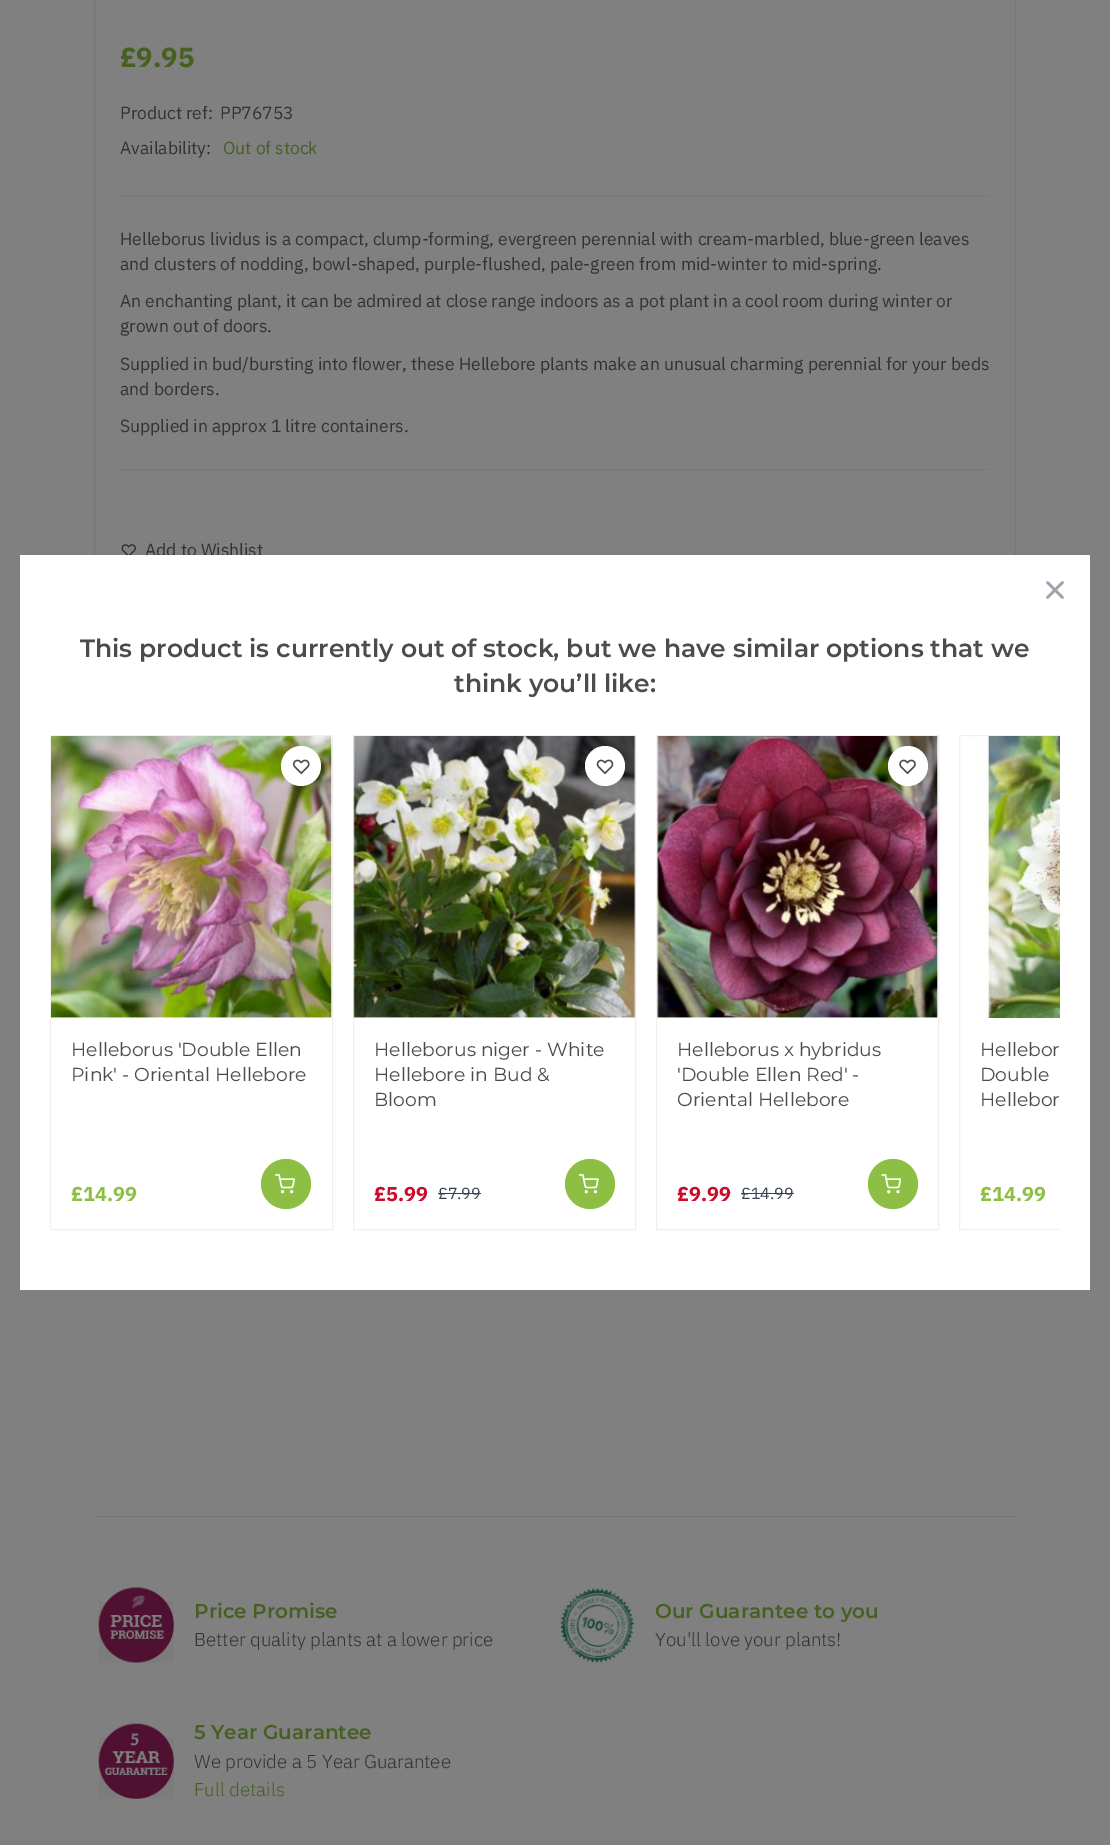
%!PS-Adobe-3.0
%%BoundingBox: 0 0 1110 1845
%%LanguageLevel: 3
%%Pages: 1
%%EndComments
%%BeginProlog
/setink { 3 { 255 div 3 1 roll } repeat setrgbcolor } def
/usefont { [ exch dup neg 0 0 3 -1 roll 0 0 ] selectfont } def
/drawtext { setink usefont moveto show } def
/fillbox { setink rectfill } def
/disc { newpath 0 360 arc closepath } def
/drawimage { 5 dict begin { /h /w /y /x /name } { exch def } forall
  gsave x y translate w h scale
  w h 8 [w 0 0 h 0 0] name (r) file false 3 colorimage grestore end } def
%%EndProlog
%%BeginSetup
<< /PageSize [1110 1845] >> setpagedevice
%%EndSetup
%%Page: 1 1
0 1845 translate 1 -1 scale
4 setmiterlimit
0 0 1110 1845 128 128 128 fillbox
118 118 118 setink
94.5 -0.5 921 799 rectstroke
(£9.95) 120 67 /IBMPlexSans-Bold 27.5 70 96 34 drawtext
(Product ref:) 120 119 /IBMPlexSans-Regular 17.5 51 51 51 drawtext
(PP76753) 220 119 /IBMPlexSans-Regular 17.5 51 51 51 drawtext
(Availability:) 120 154 /IBMPlexSans-Regular 17.5 51 51 51 drawtext
(Out of stock) 223 154 /IBMPlexSans-Regular 17.5 70 96 34 drawtext
120 195 870 1 120 120 120 fillbox
120 469 870 1 120 120 120 fillbox
(Helleborus lividus is a compact, clump-forming, evergreen perennial with cream-marbled, blue-green leaves) 120 245 /IBMPlexSans-Regular 17.5 51 51 51 drawtext
(and clusters of nodding, bowl-shaped, purple-flushed, pale-green from mid-winter to mid-spring.) 120 270 /IBMPlexSans-Regular 17.5 51 51 51 drawtext
(An enchanting plant, it can be admired at close range indoors as a pot plant in a cool room during winter or) 120 307 /IBMPlexSans-Regular 17.5 51 51 51 drawtext
(grown out of doors.) 120 332 /IBMPlexSans-Regular 17.5 51 51 51 drawtext
(Supplied in bud/bursting into flower, these Hellebore plants make an unusual charming perennial for your beds) 120 370 /IBMPlexSans-Regular 17.5 51 51 51 drawtext
(and borders.) 120 395 /IBMPlexSans-Regular 17.5 51 51 51 drawtext
(Supplied in approx 1 litre containers.) 120 432 /IBMPlexSans-Regular 17.5 51 51 51 drawtext
(assets/img1.rgb) 121 544 15 11 drawimage
(Add to Wishlist) 145 556 /IBMPlexSans-Regular 17.5 51 51 51 drawtext
94 1516 922 1 118 118 118 fillbox
(assets/img2.rgb) 98 1587 76 76 drawimage
(Price Promise) 194 1618 /Montserrat-SemiBold 20 70 96 34 drawtext
(Better quality plants at a lower price) 194 1646 /IBMPlexSans-Light 18.75 51 51 51 drawtext
(assets/img3.rgb) 560 1588 75 75 drawimage
(Our Guarantee to you) 655 1618 /Montserrat-SemiBold 20 70 96 34 drawtext
(You'll love your plants!) 655 1646 /IBMPlexSans-Light 18.75 51 51 51 drawtext
(assets/img4.rgb) 98 1723 76 76 drawimage
(5 Year Guarantee) 194 1739 /Montserrat-SemiBold 20 70 96 34 drawtext
(We provide a 5 Year Guarantee) 194 1768 /IBMPlexSans-Light 18.75 51 51 51 drawtext
(Full details) 194 1796 /IBMPlexSans-Light 18.75 70 96 34 drawtext
20 555 1070 735 255 255 255 fillbox
156 163 175 setink
2.5 setlinewidth
1 setlinecap
1 setlinejoin
1047.5 597.5 moveto 1062.5 582.5 lineto 1047.5 582.5 moveto 1062.5 597.5 lineto stroke
(This product is currently out of stock, but we have similar options that we) 80 657 /Montserrat-SemiBold 25 76 76 76 drawtext
(think you’ll like:) 454 692 /Montserrat-SemiBold 25 76 76 76 drawtext
240 240 240 setink
1 setlinewidth
0 setlinecap
0 setlinejoin
50.5 735.5 282 494 rectstroke
(assets/img5.rgb) 51 736 281 282 drawimage
255 255 255 setink
301 766 20 disc fill
(assets/img6.rgb) 292 759 18 16 drawimage
(Helleborus 'Double Ellen) 71 1056 /Montserrat-Regular 18.75 76 76 76 drawtext
(Pink' - Oriental Hellebore) 71 1081 /Montserrat-Regular 18.75 76 76 76 drawtext
(£14.99) 71 1201 /IBMPlexSans-Bold 20 140 191 67 drawtext
286 1184 25 disc fill
(assets/img7.rgb) 275 1174 20 20 drawimage
240 240 240 setink
353.5 735.5 282 494 rectstroke
(assets/img8.rgb) 353 736 283 282 drawimage
255 255 255 setink
605 766 20 disc fill
(assets/img9.rgb) 596 759 18 15 drawimage
(Helleborus niger - White) 374 1056 /Montserrat-Regular 18.75 76 76 76 drawtext
(Hellebore in Bud &) 374 1081 /Montserrat-Regular 18.75 76 76 76 drawtext
(Bloom) 374 1106 /Montserrat-Regular 18.75 76 76 76 drawtext
(£5.99) 374 1201 /IBMPlexSans-Bold 20 204 11 44 drawtext
(£7.99) 438 1199 /IBMPlexSans-Regular 16 55 65 81 drawtext
438 1193 43 1 55 65 81 fillbox
140 191 67 setink
590 1184 25 disc fill
(assets/img10.rgb) 579 1174 20 20 drawimage
240 240 240 setink
656.5 735.5 282 494 rectstroke
(assets/img11.rgb) 657 736 281 282 drawimage
255 255 255 setink
908 766 20 disc fill
(assets/img12.rgb) 899 759 17 16 drawimage
(Helleborus x hybridus) 677 1056 /Montserrat-Regular 18.75 76 76 76 drawtext
('Double Ellen Red' -) 677 1081 /Montserrat-Regular 18.75 76 76 76 drawtext
(Oriental Hellebore) 677 1106 /Montserrat-Regular 18.75 76 76 76 drawtext
(£9.99) 677 1201 /IBMPlexSans-Bold 20 204 11 44 drawtext
(£14.99) 741 1199 /IBMPlexSans-Regular 16 55 65 81 drawtext
741 1193 53 1 55 65 81 fillbox
140 191 67 setink
893 1184 25 disc fill
(assets/img13.rgb) 881 1174 20 20 drawimage
gsave
50 735 1010 495 rectclip
240 240 240 setink
959.5 735.5 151 494 rectstroke
grestore
(assets/img14.rgb) 977 736 83 282 drawimage
(Hellebor) 980 1056 /Montserrat-Regular 18.75 76 76 76 drawtext
(Double) 980 1081 /Montserrat-Regular 18.75 76 76 76 drawtext
(Hellebor) 980 1106 /Montserrat-Regular 18.75 76 76 76 drawtext
(£14.99) 980 1201 /IBMPlexSans-Bold 20 140 191 67 drawtext
showpage
%%EOF
